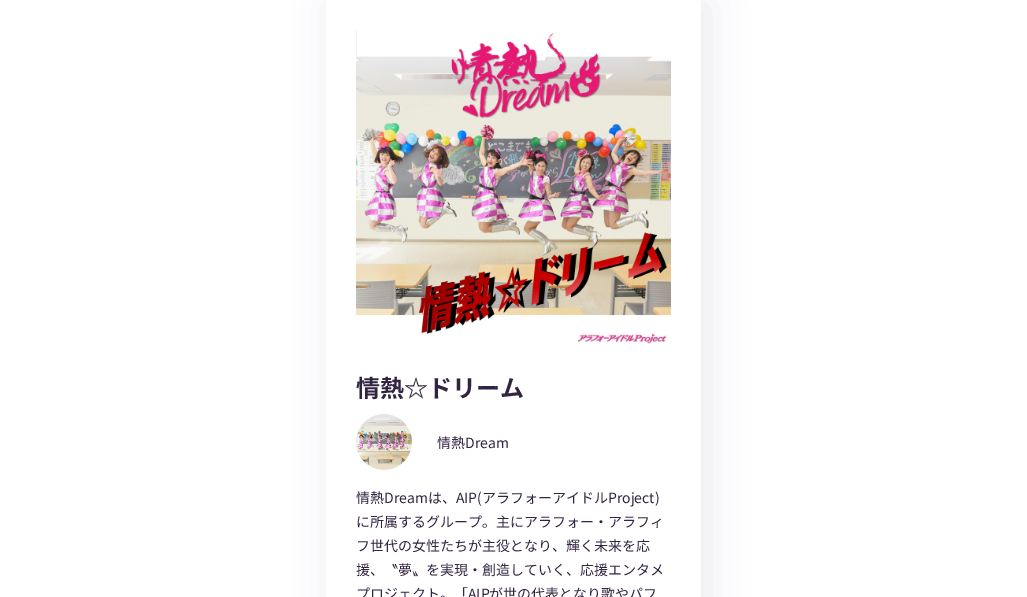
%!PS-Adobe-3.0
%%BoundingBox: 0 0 1027 597
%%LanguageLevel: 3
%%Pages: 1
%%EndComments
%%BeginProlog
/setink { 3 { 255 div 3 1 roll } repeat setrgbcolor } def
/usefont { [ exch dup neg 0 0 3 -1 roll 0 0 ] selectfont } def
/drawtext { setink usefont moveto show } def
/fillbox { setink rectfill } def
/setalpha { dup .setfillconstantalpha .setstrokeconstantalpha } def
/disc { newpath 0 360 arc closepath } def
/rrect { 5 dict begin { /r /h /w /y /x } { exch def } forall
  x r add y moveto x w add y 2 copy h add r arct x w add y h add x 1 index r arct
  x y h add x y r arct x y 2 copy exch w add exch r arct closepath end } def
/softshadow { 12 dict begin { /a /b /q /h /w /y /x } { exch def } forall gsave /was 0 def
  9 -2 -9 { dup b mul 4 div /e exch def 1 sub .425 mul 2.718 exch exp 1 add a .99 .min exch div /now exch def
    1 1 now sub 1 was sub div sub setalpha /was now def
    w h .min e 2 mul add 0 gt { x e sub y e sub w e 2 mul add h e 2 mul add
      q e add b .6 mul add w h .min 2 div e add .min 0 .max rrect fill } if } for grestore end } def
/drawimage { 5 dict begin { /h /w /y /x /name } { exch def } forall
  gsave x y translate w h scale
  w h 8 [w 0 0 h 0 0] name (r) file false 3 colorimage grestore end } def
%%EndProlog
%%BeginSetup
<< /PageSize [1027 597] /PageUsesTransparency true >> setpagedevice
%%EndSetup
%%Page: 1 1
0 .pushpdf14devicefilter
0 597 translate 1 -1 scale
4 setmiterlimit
0 0 1027 597 255 255 255 fillbox
gsave
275 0 moveto 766 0 lineto 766 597 lineto 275 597 lineto closepath 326 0 moveto 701 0 lineto 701 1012 lineto 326 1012 lineto closepath eoclip newpath
114 116 130 setink
333 5 375 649 0 19 0.15 softshadow
grestore
(assets/img1.rgb) 356 30 315 314 drawimage
(情熱) 356 397 /NotoSansJP-Bold 24 50 35 65 drawtext
(☆) 404 397 /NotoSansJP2-Bold 24 50 35 65 drawtext
(ドリーム) 428 397 /NotoSansJP-Bold 24 50 35 65 drawtext
242 242 242 setink
384 442 28 disc fill
(assets/img2.rgb) 356 414 56 56 drawimage
(情熱Dream) 437 448 /NotoSansJP-Regular 14 50 35 65 drawtext
(情熱Dreamは、AIP\(アラフォーアイドルProject\)) 356 503 /NotoSansJP-Regular 14 50 35 65 drawtext
(に所属するグループ。主にアラフォー・アラフィ) 356 527 /NotoSansJP-Regular 14 50 35 65 drawtext
(フ世代の女性たちが主役となり、輝く未来を応) 356 551 /NotoSansJP-Regular 14 50 35 65 drawtext
(援、) 356 575 /NotoSansJP-Regular 14 50 35 65 drawtext
(〝) 384 575 /WenQuanYiZenHei-Medium 14 50 35 65 drawtext
(夢) 398 575 /NotoSansJP-Regular 14 50 35 65 drawtext
(〟) 412 575 /WenQuanYiZenHei-Medium 14 50 35 65 drawtext
(を実現・創造していく、応援エンタメ) 426 575 /NotoSansJP-Regular 14 50 35 65 drawtext
(プロジェクト。「AIPが世の代表となり歌やパフ) 356 599 /NotoSansJP-Regular 14 50 35 65 drawtext
.poppdf14devicefilter showpage
%%EOF
